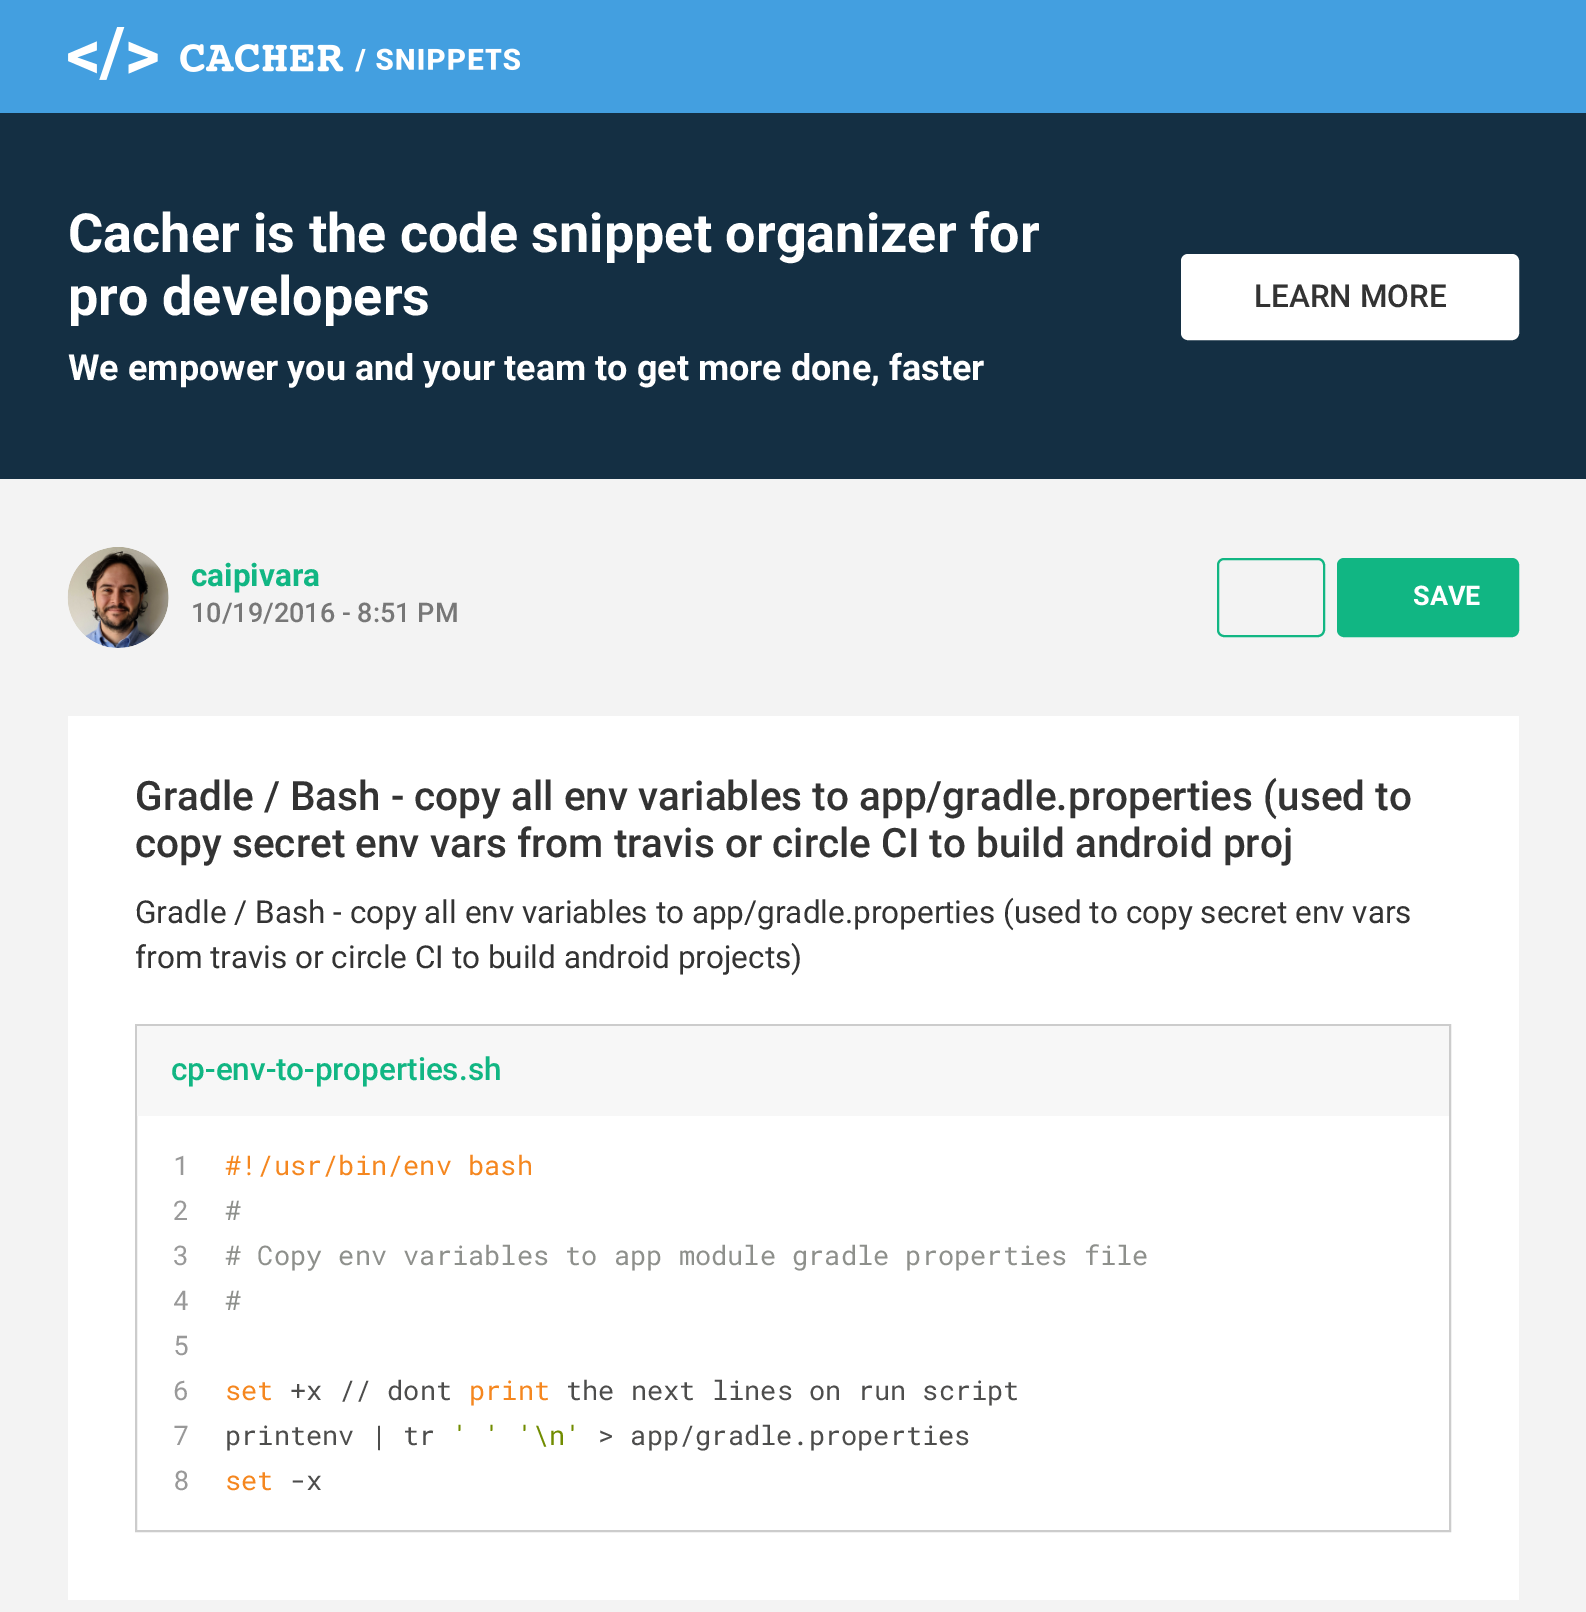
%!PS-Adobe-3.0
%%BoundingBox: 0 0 1586 1612
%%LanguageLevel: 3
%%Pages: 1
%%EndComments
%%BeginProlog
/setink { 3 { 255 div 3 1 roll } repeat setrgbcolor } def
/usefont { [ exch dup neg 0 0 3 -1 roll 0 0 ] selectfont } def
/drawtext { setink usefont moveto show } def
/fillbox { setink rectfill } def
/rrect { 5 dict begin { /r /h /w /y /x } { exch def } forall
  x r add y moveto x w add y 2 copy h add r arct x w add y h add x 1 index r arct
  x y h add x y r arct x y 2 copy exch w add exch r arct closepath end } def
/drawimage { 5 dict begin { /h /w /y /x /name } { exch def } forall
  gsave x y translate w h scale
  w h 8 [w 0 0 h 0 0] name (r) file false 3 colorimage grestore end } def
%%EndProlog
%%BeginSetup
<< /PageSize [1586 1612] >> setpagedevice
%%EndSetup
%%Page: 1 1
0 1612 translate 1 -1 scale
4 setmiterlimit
0 0 1586 1612 243 243 243 fillbox
0 0 1586 113 67 159 224 fillbox
(assets/img1.rgb) 68 27 452 53 drawimage
0 113 1586 366 20 47 67 fillbox
(Cacher is the code snippet organizer for) 68 252 /Roboto-Bold 54 255 255 255 drawtext
(pro developers) 68 315 /Roboto-Bold 54 255 255 255 drawtext
(We empower you and your team to get more done, faster) 68 380 /Roboto-Bold 36 255 255 255 drawtext
1182 255 336 84 6 rrect gsave fill grestore
2 setlinewidth
stroke
(LEARN MORE) 1254 307 /Roboto-Medium 31.5 51 51 51 drawtext
(assets/img2.rgb) 67 547 102 101 drawimage
(caipivara) 191 586 /Roboto-Bold 31.5 17 182 131 drawtext
(10/19/2016 - 8:51 PM) 191 622 /Roboto-Medium 27 119 119 119 drawtext
17 182 131 setink
1218 559 106 77 6 rrect stroke
1338 559 180 77 6 rrect gsave fill grestore
stroke
(SAVE) 1413 605 /Roboto-Bold 27 255 255 255 drawtext
68 716 1451 884 255 255 255 fillbox
(Gradle / Bash - copy all env variables to app/gradle.properties \(used to) 135 810 /Roboto-Medium 40.5 51 51 51 drawtext
(copy secret env vars from travis or circle CI to build android proj) 135 857 /Roboto-Medium 40.5 51 51 51 drawtext
(Gradle / Bash - copy all env variables to app/gradle.properties \(used to copy secret env vars) 135 923 /Roboto-Regular 31.5 51 51 51 drawtext
(from travis or circle CI to build android projects\)) 135 968 /Roboto-Regular 31.5 51 51 51 drawtext
204 204 204 setink
136 1025 1314 506 rectstroke
137 1026 1312 90 247 247 247 fillbox
(cp-env-to-properties.sh) 171 1080 /Roboto-Medium 31.5 17 182 131 drawtext
(1) 173 1175 /RobotoMono-Regular 27 153 153 153 drawtext
(#!/usr/bin/env bash) 225 1175 /RobotoMono-Regular 27 245 135 31 drawtext
(2) 173 1220 /RobotoMono-Regular 27 153 153 153 drawtext
(#) 225 1220 /RobotoMono-Regular 27 142 144 140 drawtext
(3) 173 1265 /RobotoMono-Regular 27 153 153 153 drawtext
(# Copy env variables to app module gradle properties file) 225 1265 /RobotoMono-Regular 27 142 144 140 drawtext
(4) 173 1310 /RobotoMono-Regular 27 153 153 153 drawtext
(#) 225 1310 /RobotoMono-Regular 27 142 144 140 drawtext
(5) 173 1355 /RobotoMono-Regular 27 153 153 153 drawtext
(6) 173 1400 /RobotoMono-Regular 27 153 153 153 drawtext
(set) 225 1400 /RobotoMono-Regular 27 245 135 31 drawtext
(+x // dont) 290 1400 /RobotoMono-Regular 27 77 77 76 drawtext
(print) 469 1400 /RobotoMono-Regular 27 245 135 31 drawtext
(the next lines on run script) 566 1400 /RobotoMono-Regular 27 77 77 76 drawtext
(7) 173 1445 /RobotoMono-Regular 27 153 153 153 drawtext
(printenv | tr) 225 1445 /RobotoMono-Regular 27 77 77 76 drawtext
(' ' '\\n') 452 1445 /RobotoMono-Regular 27 113 140 0 drawtext
(> app/gradle.properties) 598 1445 /RobotoMono-Regular 27 77 77 76 drawtext
(8) 173 1490 /RobotoMono-Regular 27 153 153 153 drawtext
(set) 225 1490 /RobotoMono-Regular 27 245 135 31 drawtext
(-x) 290 1490 /RobotoMono-Regular 27 77 77 76 drawtext
showpage
%%EOF
